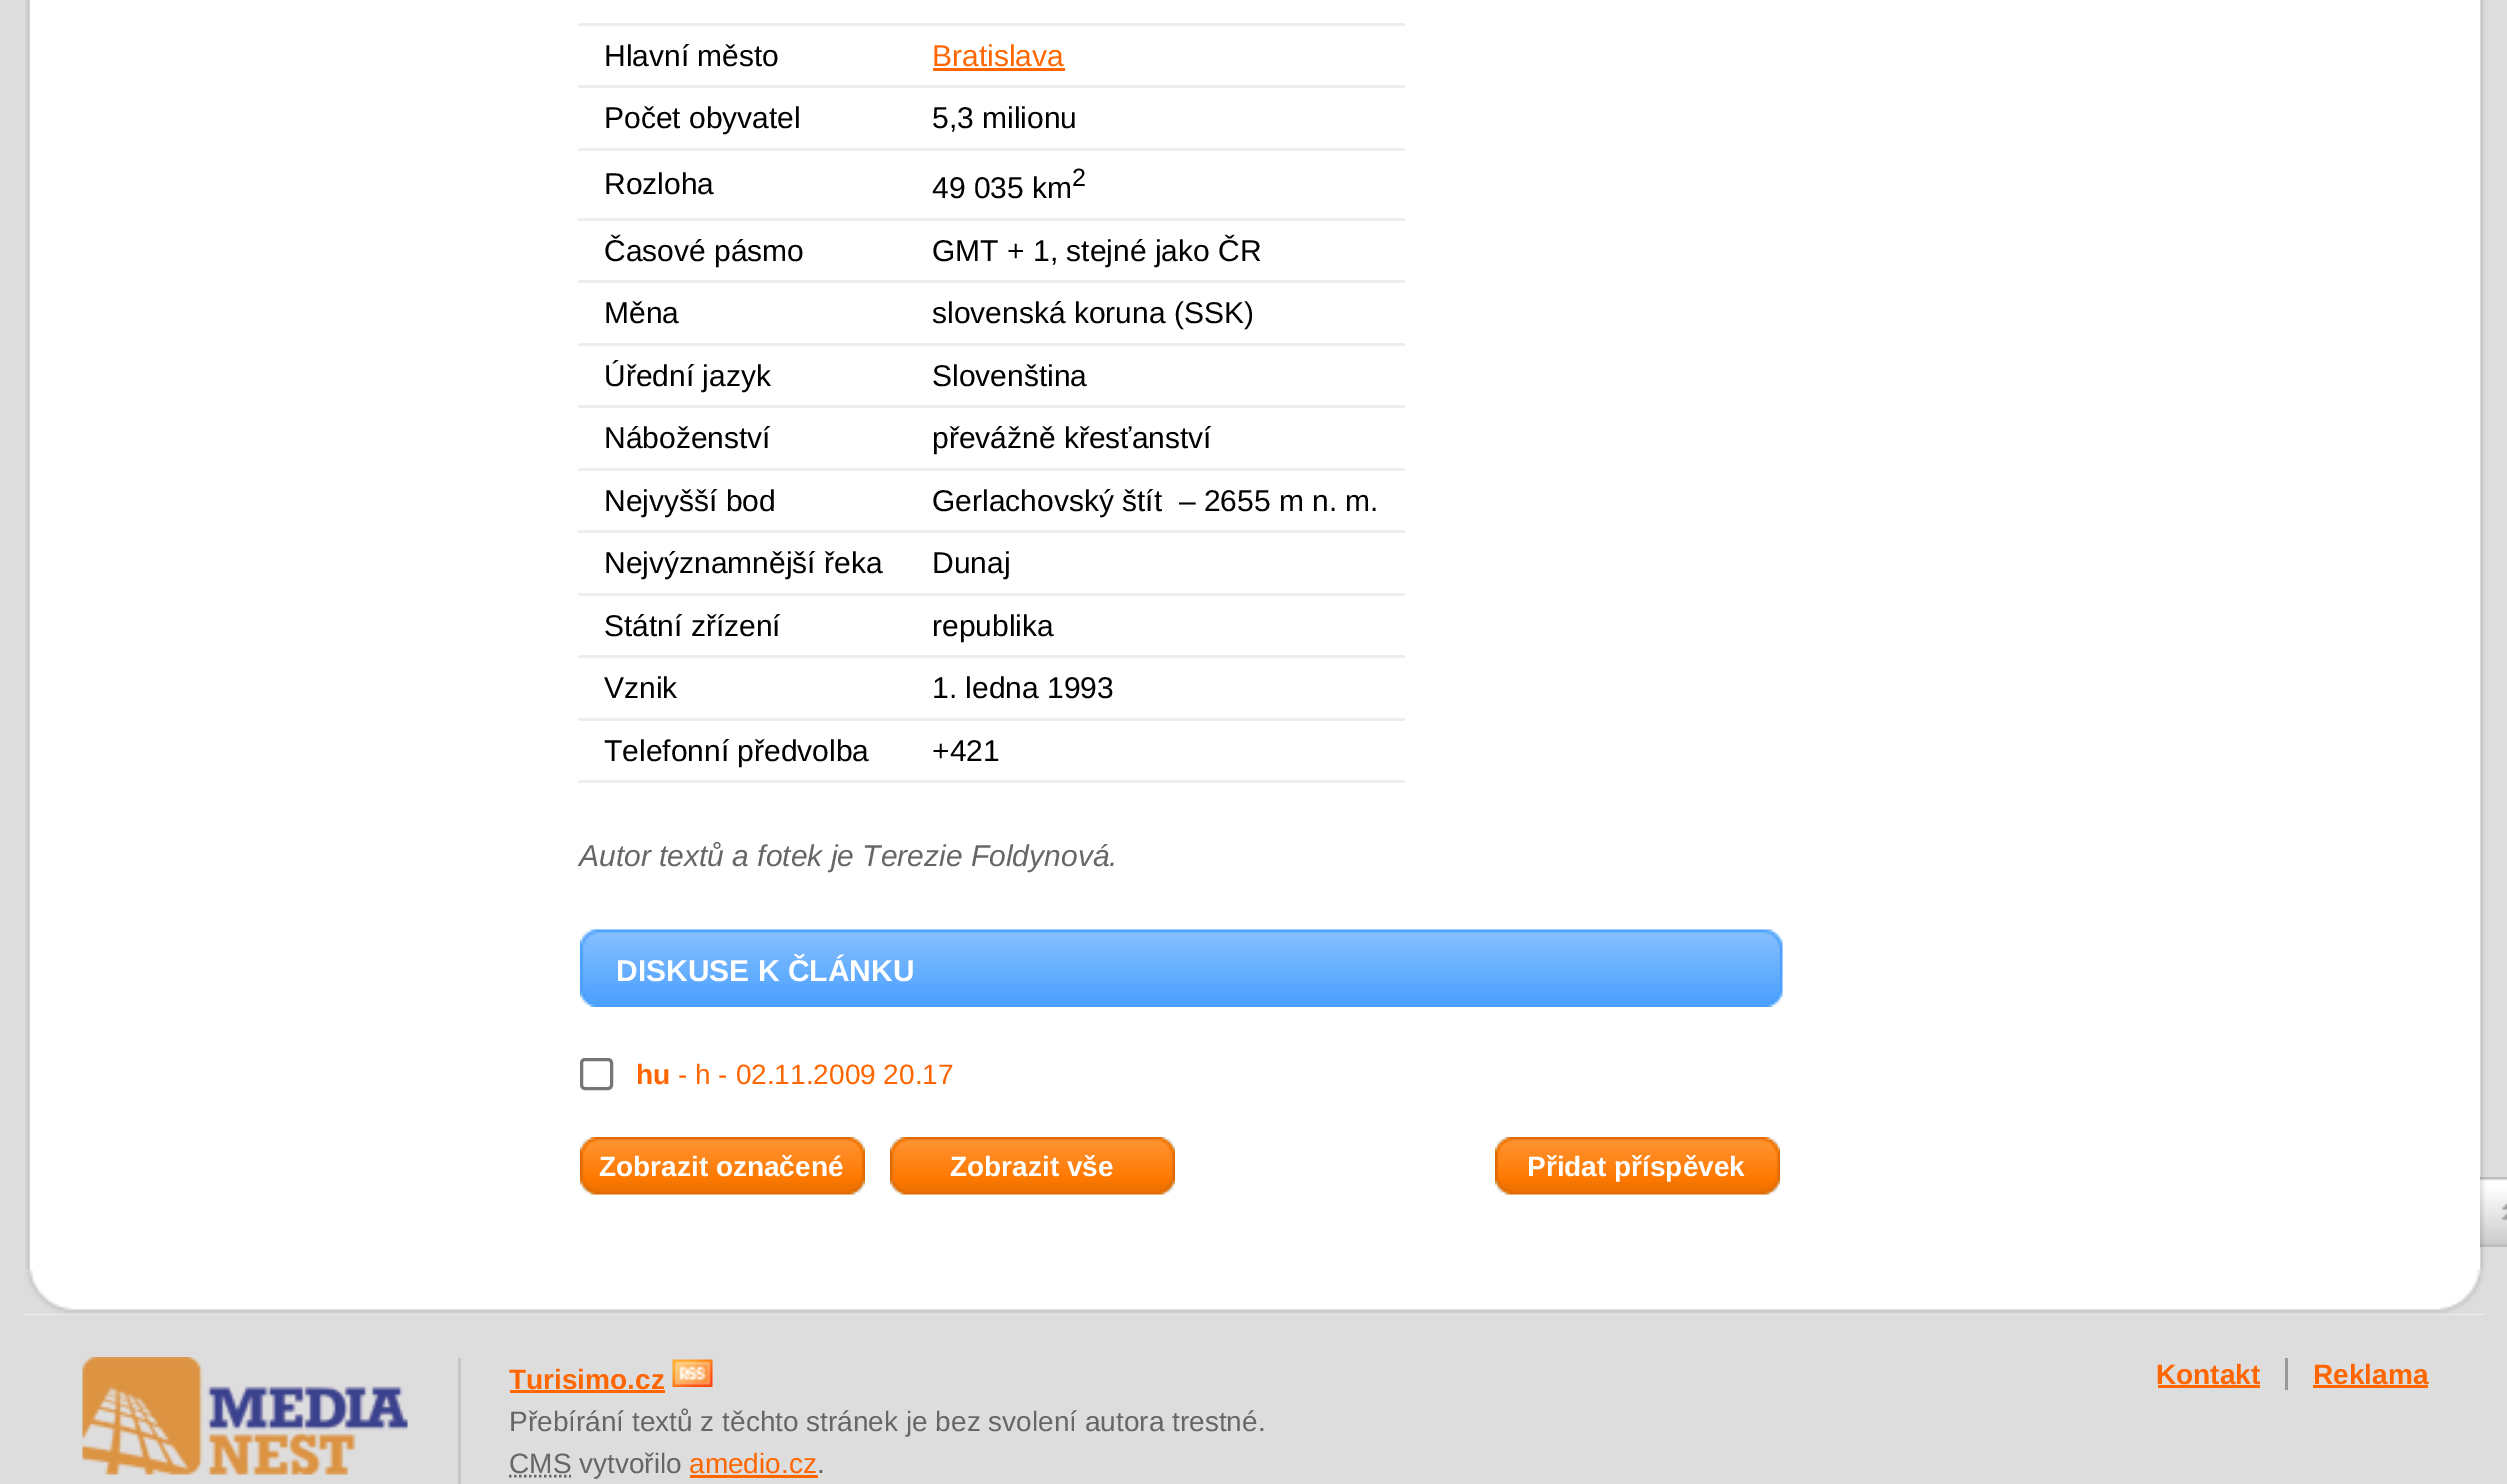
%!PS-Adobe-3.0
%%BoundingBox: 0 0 2507 1484
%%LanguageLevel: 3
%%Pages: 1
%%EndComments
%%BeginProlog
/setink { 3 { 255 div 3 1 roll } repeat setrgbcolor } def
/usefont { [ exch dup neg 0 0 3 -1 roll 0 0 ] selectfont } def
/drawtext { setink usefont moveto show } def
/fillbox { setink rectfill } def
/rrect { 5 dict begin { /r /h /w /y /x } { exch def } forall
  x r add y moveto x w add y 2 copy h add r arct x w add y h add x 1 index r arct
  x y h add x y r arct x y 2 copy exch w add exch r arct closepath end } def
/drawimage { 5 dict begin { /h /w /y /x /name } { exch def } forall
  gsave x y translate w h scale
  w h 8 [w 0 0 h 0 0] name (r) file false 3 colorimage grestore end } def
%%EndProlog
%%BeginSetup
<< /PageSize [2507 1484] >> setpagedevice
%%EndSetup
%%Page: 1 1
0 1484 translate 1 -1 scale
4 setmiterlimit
0 0 2507 1484 221 221 221 fillbox
(assets/img1.rgb) 25 0 2460 1270 drawimage
30 0 2450 1270 255 255 255 fillbox
578 23 827 3 238 238 238 fillbox
578 85 827 3 238 238 238 fillbox
(Hlavní město) 604 66 /LiberationSans-Regular 30 0 0 0 drawtext
(Bratislava) 932 66 /LiberationSans-Regular 30 255 102 0 drawtext
933 68 132 3 255 102 0 fillbox
578 148 827 3 238 238 238 fillbox
(Počet obyvatel) 604 128 /LiberationSans-Regular 30 0 0 0 drawtext
(5,3 milionu) 932 128 /LiberationSans-Regular 30 0 0 0 drawtext
578 218 827 3 238 238 238 fillbox
(Rozloha) 604 194 /LiberationSans-Regular 30 0 0 0 drawtext
(49 035 km) 932 198 /LiberationSans-Regular 30 0 0 0 drawtext
(2) 1072 186 /LiberationSans-Regular 25 0 0 0 drawtext
578 280 827 3 238 238 238 fillbox
(Časové pásmo) 604 261 /LiberationSans-Regular 30 0 0 0 drawtext
(GMT + 1, stejné jako ČR) 932 261 /LiberationSans-Regular 30 0 0 0 drawtext
578 343 827 3 238 238 238 fillbox
(Měna) 604 323 /LiberationSans-Regular 30 0 0 0 drawtext
(slovenská koruna \(SSK\)) 932 323 /LiberationSans-Regular 30 0 0 0 drawtext
578 405 827 3 238 238 238 fillbox
(Úřední jazyk) 604 386 /LiberationSans-Regular 30 0 0 0 drawtext
(Slovenština) 932 386 /LiberationSans-Regular 30 0 0 0 drawtext
578 468 827 3 238 238 238 fillbox
(Náboženství) 604 448 /LiberationSans-Regular 30 0 0 0 drawtext
(převážně křesťanství) 932 448 /LiberationSans-Regular 30 0 0 0 drawtext
578 530 827 3 238 238 238 fillbox
(Nejvyšší bod) 604 511 /LiberationSans-Regular 30 0 0 0 drawtext
(Gerlachovský štít  – 2655 m n. m.) 932 511 /LiberationSans-Regular 30 0 0 0 drawtext
578 593 827 3 238 238 238 fillbox
(Nejvýznamnější řeka) 604 573 /LiberationSans-Regular 30 0 0 0 drawtext
(Dunaj) 932 573 /LiberationSans-Regular 30 0 0 0 drawtext
578 655 827 3 238 238 238 fillbox
(Státní zřízení) 604 636 /LiberationSans-Regular 30 0 0 0 drawtext
(republika) 932 636 /LiberationSans-Regular 30 0 0 0 drawtext
578 718 827 3 238 238 238 fillbox
(Vznik) 604 698 /LiberationSans-Regular 30 0 0 0 drawtext
(1. ledna 1993) 932 698 /LiberationSans-Regular 30 0 0 0 drawtext
578 780 827 3 238 238 238 fillbox
(Telefonní předvolba) 604 761 /LiberationSans-Regular 30 0 0 0 drawtext
(+421) 932 761 /LiberationSans-Regular 30 0 0 0 drawtext
(Autor textů a fotek je Terezie Foldynová.) 579 866 /LiberationSans-Italic 30 102 102 102 drawtext
(assets/img2.rgb) 580 929 1203 78 drawimage
(DISKUSE K ČLÁNKU) 616 981 /LiberationSans-Bold 30 255 255 255 drawtext
118 118 118 setink
3 setlinewidth
581.5 1059.5 30 29 3.5 rrect stroke
(hu) 636 1084 /LiberationSans-Bold 28 255 102 0 drawtext
(- h - 02.11.2009 20.17) 678 1084 /LiberationSans-Regular 28 255 102 0 drawtext
(assets/img3.rgb) 580 1137 285 58 drawimage
(Zobrazit označené) 599 1176 /LiberationSans-Bold 28 255 255 255 drawtext
(assets/img4.rgb) 890 1137 285 58 drawimage
(Zobrazit vše) 950 1176 /LiberationSans-Bold 28 255 255 255 drawtext
(assets/img5.rgb) 1495 1137 285 58 drawimage
(Přidat příspěvek) 1527 1176 /LiberationSans-Bold 28 255 255 255 drawtext
(assets/img6.rgb) 2480 1177 27 70 drawimage
25 1314 2460 1 255 255 255 fillbox
(assets/img7.rgb) 25 1269 2460 46 drawimage
(assets/img8.rgb) 82 1357 326 118 drawimage
458 1358 3 126 198 198 198 fillbox
(Turisimo.cz) 509 1389 /LiberationSans-Bold 28 255 102 0 drawtext
510 1390 155 3 255 102 0 fillbox
(assets/img9.rgb) 672 1359 41 28 drawimage
(Přebírání textů z těchto stránek je bez svolení autora trestné.) 509 1431 /LiberationSans-Regular 28 102 102 102 drawtext
2.5 setlinewidth
[2.5 2.5] 0 setdash
509 1476 moveto 571 1476 lineto stroke
(CMS vytvořilo) 509 1473 /LiberationSans-Regular 28 102 102 102 drawtext
(amedio.cz) 689 1473 /LiberationSans-Regular 28 255 102 0 drawtext
690 1475 128 3 255 102 0 fillbox
(.) 817 1473 /LiberationSans-Regular 28 102 102 102 drawtext
2285 1358 3 32 153 153 153 fillbox
(Kontakt) 2156 1384 /LiberationSans-Bold 28 255 102 0 drawtext
2158 1385 102 3 255 102 0 fillbox
(Reklama) 2313 1384 /LiberationSans-Bold 28 255 102 0 drawtext
2313 1385 115 3 255 102 0 fillbox
showpage
%%EOF
